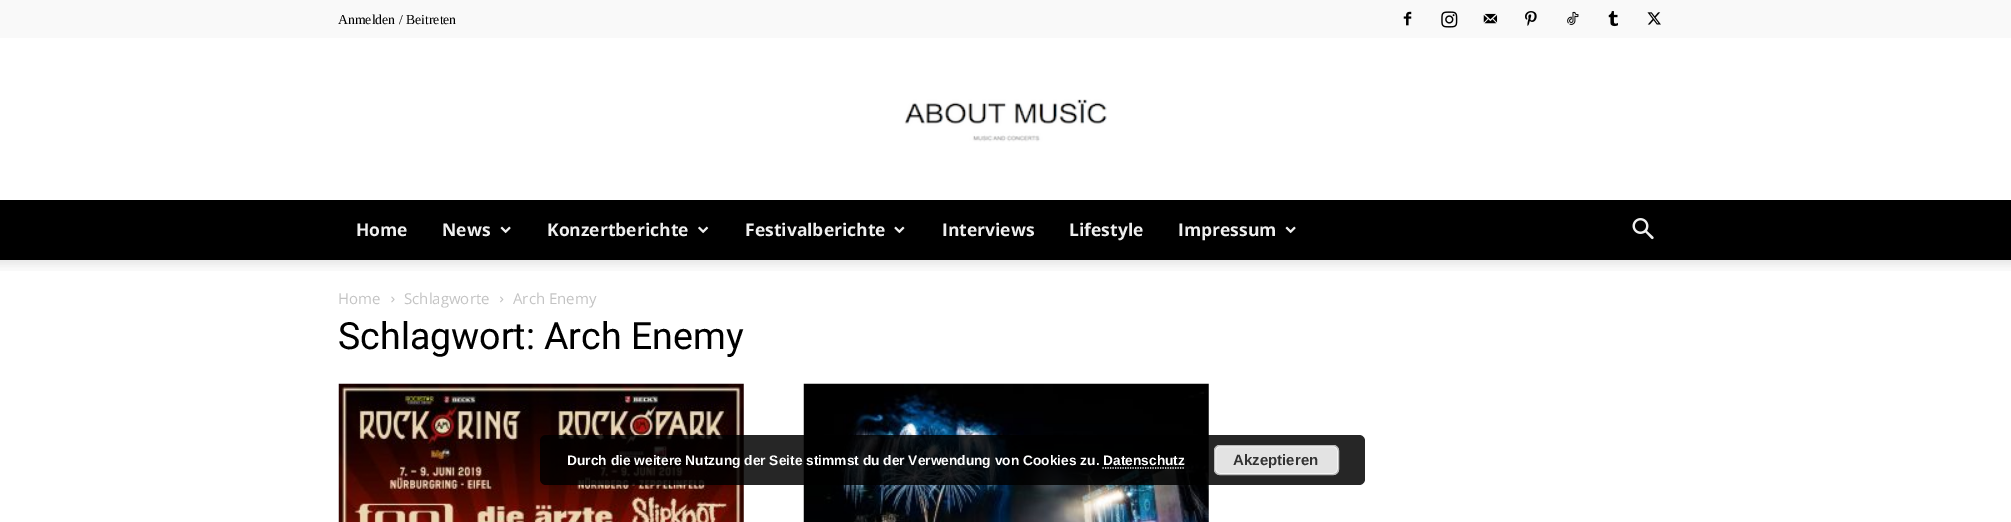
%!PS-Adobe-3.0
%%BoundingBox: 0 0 2011 522
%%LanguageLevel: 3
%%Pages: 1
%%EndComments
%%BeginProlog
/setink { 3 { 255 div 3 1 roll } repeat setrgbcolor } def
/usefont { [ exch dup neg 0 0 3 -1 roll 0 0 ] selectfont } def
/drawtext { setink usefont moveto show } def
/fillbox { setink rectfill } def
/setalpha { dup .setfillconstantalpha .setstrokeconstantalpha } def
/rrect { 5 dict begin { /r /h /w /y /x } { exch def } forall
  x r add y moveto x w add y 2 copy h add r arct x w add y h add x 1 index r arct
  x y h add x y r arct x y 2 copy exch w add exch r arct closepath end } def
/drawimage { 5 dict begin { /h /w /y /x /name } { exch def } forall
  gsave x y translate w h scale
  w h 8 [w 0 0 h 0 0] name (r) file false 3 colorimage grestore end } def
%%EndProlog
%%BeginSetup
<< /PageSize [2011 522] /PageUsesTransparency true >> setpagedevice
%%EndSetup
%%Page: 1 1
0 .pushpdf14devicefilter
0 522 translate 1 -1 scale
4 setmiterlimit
0 0 2011 522 255 255 255 fillbox
0 0 2011 38 249 249 249 fillbox
(Anmelden / Beitreten) 338 24 /LiberationSerif-Regular 13.75 0 0 0 drawtext
(assets/img1.rgb) 1403 11 9 15 drawimage
(assets/img2.rgb) 1441 11 17 17 drawimage
(assets/img3.rgb) 1483 13 15 11 drawimage
(assets/img4.rgb) 1525 11 12 15 drawimage
(assets/img5.rgb) 1567 11 12 14 drawimage
(assets/img6.rgb) 1608 11 10 16 drawimage
(assets/img7.rgb) 1647 12 14 13 drawimage
(assets/img8.rgb) 904 99 203 43 drawimage
0 200 2011 60 0 0 0 fillbox
(Home) 356 236 /OpenSans-Bold 17.5 239 239 239 drawtext
(News) 442 236 /OpenSans-Bold 17.5 239 239 239 drawtext
(assets/img9.rgb) 500 226 11 8 drawimage
(Konzertberichte) 547 236 /OpenSans-Bold 17.5 239 239 239 drawtext
(assets/img10.rgb) 698 226 11 8 drawimage
(Festivalberichte) 745 236 /OpenSans-Bold 17.5 239 239 239 drawtext
(assets/img11.rgb) 894 226 11 8 drawimage
(Interviews) 942 236 /OpenSans-Bold 17.5 239 239 239 drawtext
(Lifestyle) 1069 236 /OpenSans-Bold 17.5 239 239 239 drawtext
(Impressum) 1178 236 /OpenSans-Bold 17.5 239 239 239 drawtext
(assets/img9.rgb) 1285 226 11 8 drawimage
(assets/img12.rgb) 1632 218 22 22 drawimage
(assets/img13.rgb) 0 260 2011 11 drawimage
(Home) 338 304 /OpenSans-Regular 15 195 195 195 drawtext
(assets/img14.rgb) 391 296 4 7 drawimage
(Schlagworte) 404 304 /OpenSans-Regular 15 195 195 195 drawtext
(assets/img15.rgb) 500 296 4 7 drawimage
(Arch Enemy) 513 304 /OpenSans-Regular 15 195 195 195 drawtext
(Schlagwort: Arch Enemy) 338 349 /Roboto-Regular 37.5 0 0 0 drawtext
(assets/img16.rgb) 338 383 406 139 drawimage
(assets/img17.rgb) 803 383 406 139 drawimage
0.85 setalpha
540 435 825 50 6 rrect fill
1 setalpha
(Durch die weitere Nutzung der Seite stimmst du der Verwendung von Cookies zu. Datenschutz) 567 465 /LiberationSans-Bold 13.75 255 255 255 drawtext
227 227 227 setink
1214 445 125 30 6 rrect fill
246 246 246 setink
1215.5 446.5 122 27 4.5 rrect stroke
187 187 187 setink
1214.5 445.5 124 29 5.5 rrect stroke
(Akzeptieren) 1233 465 /LiberationSans-Bold 15 51 51 51 drawtext
255 255 255 setink
1.2 setlinewidth
[1.25 1.25] 0 setdash
1102.5 468 moveto 1185 468 lineto stroke
.poppdf14devicefilter showpage
%%EOF
